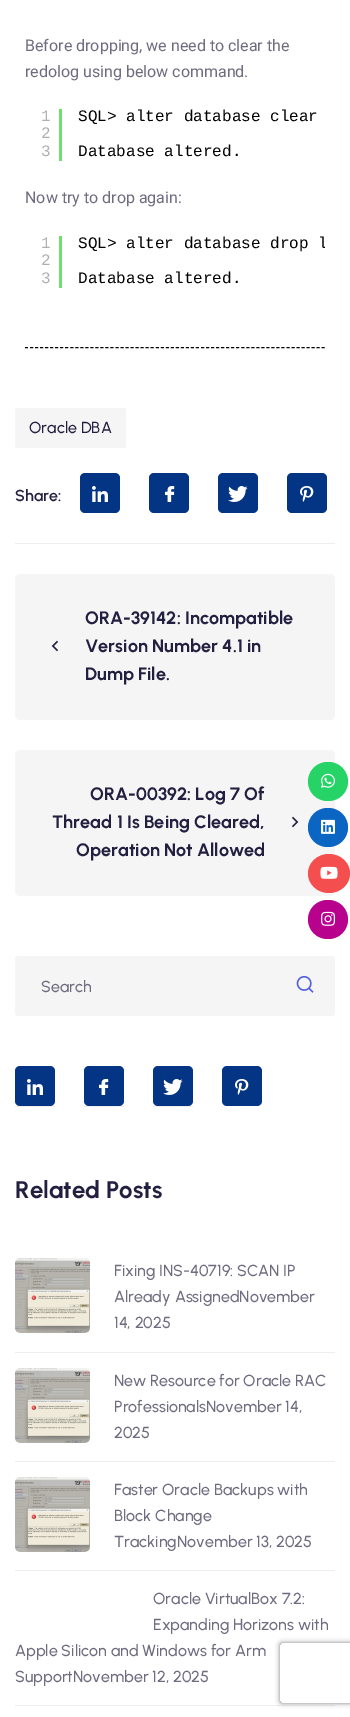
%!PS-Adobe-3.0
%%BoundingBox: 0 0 350 1717
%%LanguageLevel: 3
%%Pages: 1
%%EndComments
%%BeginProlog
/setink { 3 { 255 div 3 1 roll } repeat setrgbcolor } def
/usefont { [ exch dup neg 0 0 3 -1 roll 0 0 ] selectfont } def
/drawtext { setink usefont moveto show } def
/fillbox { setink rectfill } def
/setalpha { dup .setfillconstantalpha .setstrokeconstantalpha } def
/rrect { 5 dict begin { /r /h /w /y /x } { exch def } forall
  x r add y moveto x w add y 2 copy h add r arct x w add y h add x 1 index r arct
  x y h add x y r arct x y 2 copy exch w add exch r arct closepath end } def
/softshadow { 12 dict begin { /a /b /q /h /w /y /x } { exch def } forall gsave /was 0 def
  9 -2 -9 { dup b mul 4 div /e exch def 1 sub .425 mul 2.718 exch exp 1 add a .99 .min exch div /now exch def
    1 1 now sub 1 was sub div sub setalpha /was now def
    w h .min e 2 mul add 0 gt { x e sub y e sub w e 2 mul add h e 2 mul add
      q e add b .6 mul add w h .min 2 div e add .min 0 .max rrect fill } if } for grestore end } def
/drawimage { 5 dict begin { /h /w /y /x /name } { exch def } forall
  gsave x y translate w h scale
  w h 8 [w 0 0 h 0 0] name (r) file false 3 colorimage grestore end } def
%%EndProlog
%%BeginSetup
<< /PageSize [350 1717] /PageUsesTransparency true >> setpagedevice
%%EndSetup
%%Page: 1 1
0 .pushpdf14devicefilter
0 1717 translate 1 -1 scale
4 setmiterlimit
0 0 350 1717 255 255 255 fillbox
(Before dropping, we need to clear the) 25 51 /Roboto-Regular 16 111 107 128 drawtext
(redolog using below command.) 25 77 /Roboto-Regular 16 111 107 128 drawtext
59 109 3 52 108 226 108 fillbox
(1) 41 121 /LiberationMono-Regular 16 175 175 175 drawtext
(2) 41 138 /LiberationMono-Regular 16 175 175 175 drawtext
(3) 41 156 /LiberationMono-Regular 16 175 175 175 drawtext
(SQL> alter database clear) 78 121 /LiberationMono-Regular 16 0 0 0 drawtext
(Database altered.) 78 156 /LiberationMono-Regular 16 0 0 0 drawtext
(Now try to drop again:) 25 203 /Roboto-Regular 16 111 107 128 drawtext
59 236 3 52 108 226 108 fillbox
(1) 41 248 /LiberationMono-Regular 16 175 175 175 drawtext
(2) 41 265 /LiberationMono-Regular 16 175 175 175 drawtext
(3) 41 283 /LiberationMono-Regular 16 175 175 175 drawtext
gsave
25 228 300 68 rectclip
(SQL> alter database drop l) 78 248 /LiberationMono-Regular 16 0 0 0 drawtext
grestore
(Database altered.) 78 283 /LiberationMono-Regular 16 0 0 0 drawtext
[3 2.03] 0 setdash
25 347.5 moveto 325 347.5 lineto stroke
15 543 320 1 238 238 238 fillbox
245 245 245 setink
15 408 111 40 2 rrect fill
(Oracle DBA) 29 433 /Urbanist-Medium 16 35 31 64 drawtext
(Share:) 15 501 /Urbanist-SemiBold 16 35 31 64 drawtext
4 52 132 setink
80 473 40 40 5 rrect fill
(assets/img1.rgb) 92 486 16 16 drawimage
149 473 40 40 5 rrect fill
(assets/img2.rgb) 165 486 10 16 drawimage
218 473 40 40 5 rrect fill
(assets/img3.rgb) 228 486 20 16 drawimage
287 473 40 40 5 rrect fill
(assets/img4.rgb) 300 486 14 16 drawimage
245 245 245 setink
15 574 320 146 5 rrect fill
(assets/img5.rgb) 51 640 8 12 drawimage
(ORA-39142: Incompatible) 85 624 /Urbanist-Bold 18 35 31 64 drawtext
(Version Number 4.1 in) 85 652 /Urbanist-Bold 18 35 31 64 drawtext
(Dump File.) 85 680 /Urbanist-Bold 18 35 31 64 drawtext
245 245 245 setink
15 750 320 146 5 rrect fill
(ORA-00392: Log 7 Of) 90 800 /Urbanist-Bold 18 35 31 64 drawtext
(Thread 1 Is Being Cleared,) 52 828 /Urbanist-Bold 18 35 31 64 drawtext
(Operation Not Allowed) 76 856 /Urbanist-Bold 18 35 31 64 drawtext
(assets/img6.rgb) 291 816 8 12 drawimage
245 245 245 setink
15 956 320 60 3 rrect fill
(Search) 41 992 /Urbanist-Medium 16 111 107 128 drawtext
(assets/img7.rgb) 296 975 18 18 drawimage
15 1106 40 1 238 238 238 fillbox
4 52 132 setink
15 1066 40 40 5 rrect fill
(assets/img1.rgb) 27 1079 16 16 drawimage
84 1106 40 1 238 238 238 fillbox
4 52 132 setink
84 1066 40 40 5 rrect fill
(assets/img2.rgb) 99 1079 10 16 drawimage
153 1106 40 1 238 238 238 fillbox
4 52 132 setink
153 1066 40 40 5 rrect fill
(assets/img3.rgb) 163 1079 20 16 drawimage
222 1066 40 40 5 rrect fill
(assets/img4.rgb) 235 1079 14 16 drawimage
(Related Posts) 15 1198 /Urbanist-Bold 24 35 31 64 drawtext
15 1352 320 1 238 238 238 fillbox
(assets/img8.rgb) 15 1258 75 75 drawimage
(Fixing INS-40719: SCAN IP) 114 1276 /Urbanist-Medium 16 111 107 128 drawtext
(Already AssignedNovember) 114 1302 /Urbanist-Medium 16 111 107 128 drawtext
(14, 2025) 114 1328 /Urbanist-Medium 16 111 107 128 drawtext
15 1461 320 1 238 238 238 fillbox
(assets/img9.rgb) 15 1368 75 75 drawimage
(New Resource for Oracle RAC) 114 1386 /Urbanist-Medium 16 111 107 128 drawtext
(ProfessionalsNovember 14,) 114 1412 /Urbanist-Medium 16 111 107 128 drawtext
(2025) 114 1438 /Urbanist-Medium 16 111 107 128 drawtext
15 1570 320 1 238 238 238 fillbox
(assets/img8.rgb) 15 1477 75 75 drawimage
(Faster Oracle Backups with) 114 1495 /Urbanist-Medium 16 111 107 128 drawtext
(Block Change) 114 1521 /Urbanist-Medium 16 111 107 128 drawtext
(TrackingNovember 13, 2025) 114 1547 /Urbanist-Medium 16 111 107 128 drawtext
15 1705 320 1 238 238 238 fillbox
(Oracle VirtualBox 7.2:) 153 1604 /Urbanist-Medium 16 111 107 128 drawtext
(Expanding Horizons with) 153 1630 /Urbanist-Medium 16 111 107 128 drawtext
(Apple Silicon and Windows for Arm) 15 1656 /Urbanist-Medium 16 111 107 128 drawtext
(SupportNovember 12, 2025) 15 1682 /Urbanist-Medium 16 111 107 128 drawtext
37 211 102 setink
308 762 40 39 19.5 rrect fill
(assets/img10.rgb) 321 773 14 15 drawimage
10 102 194 setink
308 808 40 39 19.5 rrect fill
(assets/img11.rgb) 321 819 14 15 drawimage
245 78 78 setink
329 854 moveto 340.5 854 350 862.5 350 873.5 curveto 350 884.5 340.5 893 329 893 curveto 317.5 893 308 884.5 308 873.5 curveto 308 862.5 317.5 854 329 854 curveto closepath fill
(assets/img12.rgb) 320 866 18 13 drawimage
184 1 141 setink
308 900 40 39 19.5 rrect fill
(assets/img13.rgb) 321 911 15 15 drawimage
gsave
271 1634 moveto 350 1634 lineto 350 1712 lineto 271 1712 lineto closepath 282 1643 moveto 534 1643 lineto 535 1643 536 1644 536 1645 curveto 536 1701 lineto 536 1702 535 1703 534 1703 curveto 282 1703 lineto 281 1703 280 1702 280 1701 curveto 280 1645 lineto 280 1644 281 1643 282 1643 curveto closepath eoclip newpath
128 128 128 setink
280 1643 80 60 2 2.5 1 softshadow
grestore
.poppdf14devicefilter showpage
%%EOF
